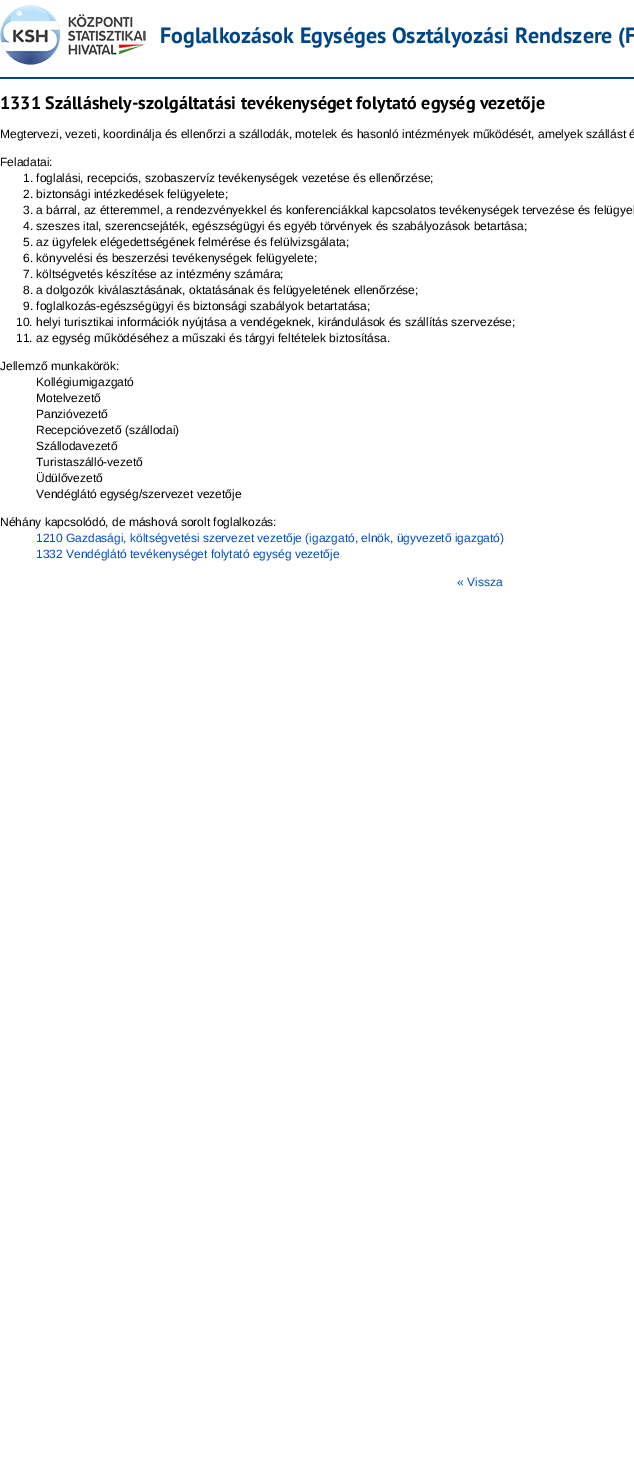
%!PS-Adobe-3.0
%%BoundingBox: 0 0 634 1475
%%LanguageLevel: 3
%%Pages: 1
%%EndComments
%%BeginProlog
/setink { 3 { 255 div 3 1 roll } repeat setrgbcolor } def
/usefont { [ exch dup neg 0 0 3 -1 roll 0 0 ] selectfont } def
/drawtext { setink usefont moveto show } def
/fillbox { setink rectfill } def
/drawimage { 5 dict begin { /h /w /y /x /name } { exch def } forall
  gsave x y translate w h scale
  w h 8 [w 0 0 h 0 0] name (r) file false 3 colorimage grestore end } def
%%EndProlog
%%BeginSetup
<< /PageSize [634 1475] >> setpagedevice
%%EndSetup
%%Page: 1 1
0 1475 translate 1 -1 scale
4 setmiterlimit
0 0 634 1475 255 255 255 fillbox
(assets/img1.rgb) 0 5 146 60 drawimage
0 77 634 2 0 70 135 fillbox
(Foglalkozások Egységes Osztályozási Rendszere \(F) 160 43 /PTSans-Bold 22 0 70 135 drawtext
(1331 Szálláshely-szolgáltatási tevékenységet folytató egység vezetője) 0 109 /PTSans-Bold 18 0 0 0 drawtext
(Megtervezi, vezeti, koordinálja és ellenőrzi a szállodák, motelek és hasonló intézmények működését, amelyek szállást é) 0 138 /LiberationSans-Regular 12 0 0 0 drawtext
(Feladatai:) 0 166 /LiberationSans-Regular 12 0 0 0 drawtext
(1. foglalási, recepciós, szobaszervíz tevékenységek vezetése és ellenőrzése;) 23 182 /LiberationSans-Regular 12 0 0 0 drawtext
(2. biztonsági intézkedések felügyelete;) 23 198 /LiberationSans-Regular 12 0 0 0 drawtext
(3. a bárral, az étteremmel, a rendezvényekkel és konferenciákkal kapcsolatos tevékenységek tervezése és felügyel) 23 214 /LiberationSans-Regular 12 0 0 0 drawtext
(4. szeszes ital, szerencsejáték, egészségügyi és egyéb törvények és szabályozások betartása;) 23 230 /LiberationSans-Regular 12 0 0 0 drawtext
(5. az ügyfelek elégedettségének felmérése és felülvizsgálata;) 23 246 /LiberationSans-Regular 12 0 0 0 drawtext
(6. könyvelési és beszerzési tevékenységek felügyelete;) 23 262 /LiberationSans-Regular 12 0 0 0 drawtext
(7. költségvetés készítése az intézmény számára;) 23 278 /LiberationSans-Regular 12 0 0 0 drawtext
(8. a dolgozók kiválasztásának, oktatásának és felügyeletének ellenőrzése;) 23 294 /LiberationSans-Regular 12 0 0 0 drawtext
(9. foglalkozás-egészségügyi és biztonsági szabályok betartatása;) 23 310 /LiberationSans-Regular 12 0 0 0 drawtext
(10. helyi turisztikai információk nyújtása a vendégeknek, kirándulások és szállítás szervezése;) 16 326 /LiberationSans-Regular 12 0 0 0 drawtext
(11. az egység működéséhez a műszaki és tárgyi feltételek biztosítása.) 16 342 /LiberationSans-Regular 12 0 0 0 drawtext
(Jellemző munkakörök:) 0 370 /LiberationSans-Regular 12 0 0 0 drawtext
(Kollégiumigazgató) 36 386 /LiberationSans-Regular 12 0 0 0 drawtext
(Motelvezető) 36 402 /LiberationSans-Regular 12 0 0 0 drawtext
(Panzióvezető) 36 418 /LiberationSans-Regular 12 0 0 0 drawtext
(Recepcióvezető \(szállodai\)) 36 434 /LiberationSans-Regular 12 0 0 0 drawtext
(Szállodavezető) 36 450 /LiberationSans-Regular 12 0 0 0 drawtext
(Turistaszálló-vezető) 36 466 /LiberationSans-Regular 12 0 0 0 drawtext
(Üdülővezető) 36 482 /LiberationSans-Regular 12 0 0 0 drawtext
(Vendéglátó egység/szervezet vezetője) 36 498 /LiberationSans-Regular 12 0 0 0 drawtext
(Néhány kapcsolódó, de máshová sorolt foglalkozás:) 0 526 /LiberationSans-Regular 12 0 0 0 drawtext
(1210 Gazdasági, költségvetési szervezet vezetője \(igazgató, elnök, ügyvezető igazgató\)) 36 542 /LiberationSans-Regular 12 0 76 191 drawtext
(1332 Vendéglátó tevékenységet folytató egység vezetője) 36 558 /LiberationSans-Regular 12 0 76 191 drawtext
(« Vissza) 457 586 /LiberationSans-Regular 12 0 76 191 drawtext
showpage
%%EOF
